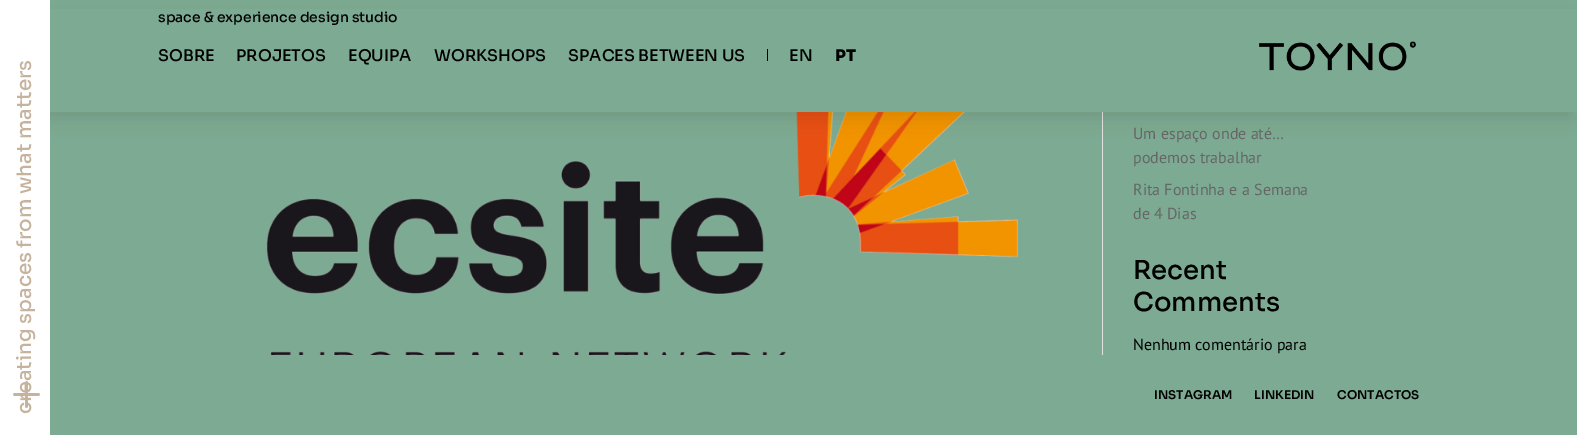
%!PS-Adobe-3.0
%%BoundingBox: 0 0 1577 435
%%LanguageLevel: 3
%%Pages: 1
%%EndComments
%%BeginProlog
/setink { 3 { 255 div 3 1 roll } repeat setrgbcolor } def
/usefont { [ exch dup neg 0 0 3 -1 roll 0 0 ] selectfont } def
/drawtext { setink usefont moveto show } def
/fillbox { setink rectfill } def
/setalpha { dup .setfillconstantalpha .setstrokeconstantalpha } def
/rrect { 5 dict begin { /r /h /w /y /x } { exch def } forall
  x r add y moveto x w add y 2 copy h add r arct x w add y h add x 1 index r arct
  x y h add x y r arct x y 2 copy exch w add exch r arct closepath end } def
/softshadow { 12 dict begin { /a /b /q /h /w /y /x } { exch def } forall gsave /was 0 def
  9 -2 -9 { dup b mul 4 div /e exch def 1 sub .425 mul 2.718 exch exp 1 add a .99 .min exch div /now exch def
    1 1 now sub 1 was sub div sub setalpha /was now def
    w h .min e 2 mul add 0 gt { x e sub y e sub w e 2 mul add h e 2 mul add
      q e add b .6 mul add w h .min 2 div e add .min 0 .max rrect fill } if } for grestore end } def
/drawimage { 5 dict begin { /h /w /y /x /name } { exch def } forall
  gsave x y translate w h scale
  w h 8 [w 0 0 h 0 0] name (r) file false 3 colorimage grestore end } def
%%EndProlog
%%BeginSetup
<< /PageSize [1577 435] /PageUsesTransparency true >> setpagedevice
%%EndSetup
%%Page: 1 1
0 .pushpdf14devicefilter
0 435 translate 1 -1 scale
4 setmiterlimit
0 0 1577 435 124 170 146 fillbox
1102 112 1 243 226 226 226 fillbox
(assets/img3.rgb) 266 112 753 243 drawimage
0 0 0 setink
6 18 1565 100 0 9 0.1 softshadow
0 0 50 435 255 255 255 fillbox
/Sora-Medium 20 usefont
198 179 158 setink
gsave 31 414 translate -90 rotate 0 0 moveto (creating spaces from what matters) show grestore
(assets/img1.rgb) 13 381 27 27 drawimage
50 9 1527 103 124 170 146 fillbox
(space & experience design studio) 158 22 /Sora-Medium 14 0 0 0 drawtext
(SOBRE) 158 61 /Sora-Medium 16 0 0 0 drawtext
(PROJETOS) 236 61 /Sora-Medium 16 0 0 0 drawtext
(EQUIPA) 348 61 /Sora-Medium 16 0 0 0 drawtext
(WORKSHOPS) 434 61 /Sora-Medium 16 0 0 0 drawtext
(SPACES BETWEEN US) 568 61 /Sora-Medium 16 0 0 0 drawtext
767 49 1 12 0 0 0 fillbox
(EN) 789 61 /Sora-Medium 16 0 0 0 drawtext
(PT) 835 61 /Sora-ExtraBold 16 0 0 0 drawtext
(assets/img2.rgb) 1259 41 157 30 drawimage
(Um espaço onde até…) 1133 139 /PTSans-Regular 16 102 102 102 drawtext
(podemos trabalhar) 1133 163 /PTSans-Regular 16 102 102 102 drawtext
(Rita Fontinha e a Semana) 1133 195 /PTSans-Regular 16 102 102 102 drawtext
(de 4 Dias) 1133 219 /PTSans-Regular 16 102 102 102 drawtext
(Recent) 1133 279 /Sora-Medium 26 0 0 0 drawtext
(Comments) 1133 311 /Sora-Medium 26 0 0 0 drawtext
(Nenhum comentário para) 1133 350 /PTSans-Regular 16 0 0 0 drawtext
(INSTAGRAM) 1154 399 /Sora-SemiBold 12 0 0 0 drawtext
(LINKEDIN) 1254 399 /Sora-SemiBold 12 0 0 0 drawtext
(CONTACTOS) 1337 399 /Sora-SemiBold 12 0 0 0 drawtext
.poppdf14devicefilter showpage
%%EOF
